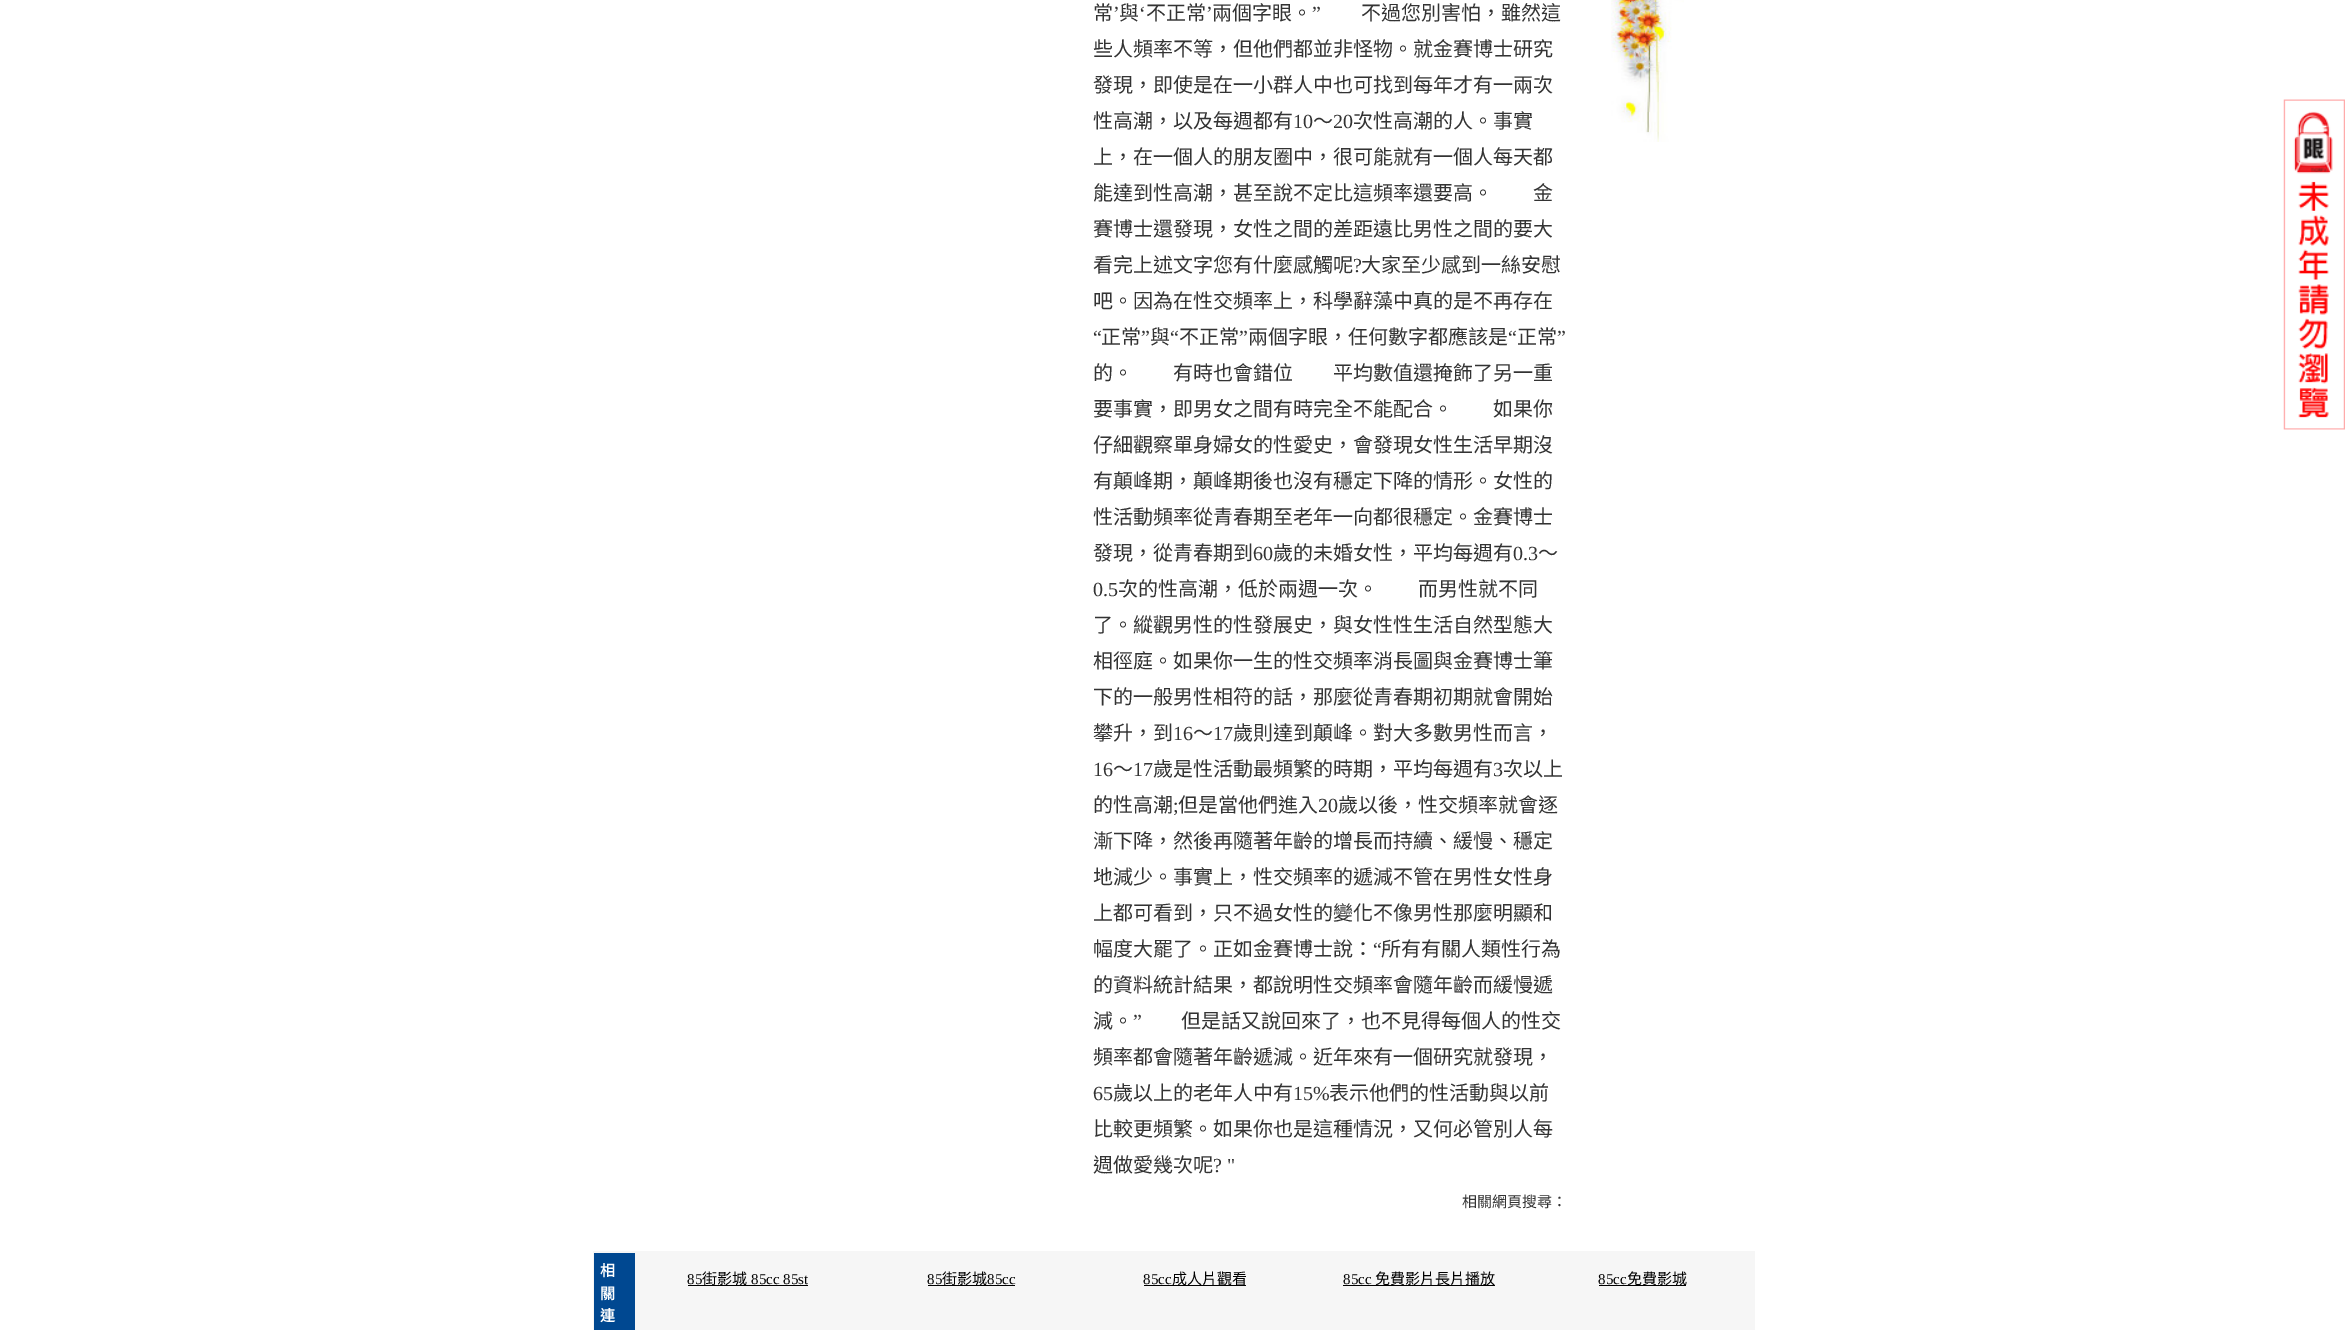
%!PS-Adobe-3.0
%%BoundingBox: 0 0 2347 1330
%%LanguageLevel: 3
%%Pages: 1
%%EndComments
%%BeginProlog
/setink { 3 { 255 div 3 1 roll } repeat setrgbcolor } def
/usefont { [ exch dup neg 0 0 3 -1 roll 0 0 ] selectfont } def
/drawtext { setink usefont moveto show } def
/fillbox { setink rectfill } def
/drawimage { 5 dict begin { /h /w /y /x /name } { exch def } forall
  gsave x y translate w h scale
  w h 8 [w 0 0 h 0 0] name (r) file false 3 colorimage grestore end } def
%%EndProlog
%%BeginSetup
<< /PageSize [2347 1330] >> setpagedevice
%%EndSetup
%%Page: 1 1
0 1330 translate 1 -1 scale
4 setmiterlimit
0 0 2347 1330 255 255 255 fillbox
(assets/img1.rgb) 1611 0 73 142 drawimage
(常) 1093 20 /NotoSansCJKTC-Regular 20 51 51 51 drawtext
(’) 1113 20 /LiberationSerif-Regular 20 51 51 51 drawtext
(與) 1119 20 /NotoSansCJKTC-Regular 20 51 51 51 drawtext
(‘) 1139 20 /LiberationSerif-Regular 20 51 51 51 drawtext
(不正常) 1146 20 /NotoSansCJKTC-Regular 20 51 51 51 drawtext
(’) 1206 20 /LiberationSerif-Regular 20 51 51 51 drawtext
(兩個字眼。) 1212 20 /NotoSansCJKTC-Regular 20 51 51 51 drawtext
(”) 1312 20 /LiberationSerif-Regular 20 51 51 51 drawtext
(不過您別害怕，雖然這) 1361 20 /NotoSansCJKTC-Regular 20 51 51 51 drawtext
(些人頻率不等，但他們都並非怪物。就金賽博士研究) 1093 56 /NotoSansCJKTC-Regular 20 51 51 51 drawtext
(發現，即使是在一小群人中也可找到每年才有一兩次) 1093 92 /NotoSansCJKTC-Regular 20 51 51 51 drawtext
(性高潮，以及每週都有) 1093 128 /NotoSansCJKTC-Regular 20 51 51 51 drawtext
(10) 1293 128 /LiberationSerif-Regular 20 51 51 51 drawtext
(～) 1313 128 /NotoSansCJKTC-Regular 20 51 51 51 drawtext
(20) 1333 128 /LiberationSerif-Regular 20 51 51 51 drawtext
(次性高潮的人。事實) 1353 128 /NotoSansCJKTC-Regular 20 51 51 51 drawtext
(上，在一個人的朋友圈中，很可能就有一個人每天都) 1093 164 /NotoSansCJKTC-Regular 20 51 51 51 drawtext
(能達到性高潮，甚至說不定比這頻率還要高。　　金) 1093 200 /NotoSansCJKTC-Regular 20 51 51 51 drawtext
(賽博士還發現，女性之間的差距遠比男性之間的要大) 1093 236 /NotoSansCJKTC-Regular 20 51 51 51 drawtext
(看完上述文字您有什麼感觸呢) 1093 272 /NotoSansCJKTC-Regular 20 51 51 51 drawtext
(?) 1353 272 /LiberationSerif-Regular 20 51 51 51 drawtext
(大家至少感到一絲安慰) 1361 272 /NotoSansCJKTC-Regular 20 51 51 51 drawtext
(吧。因為在性交頻率上，科學辭藻中真的是不再存在) 1093 308 /NotoSansCJKTC-Regular 20 51 51 51 drawtext
(“) 1093 344 /LiberationSerif-Regular 20 51 51 51 drawtext
(正常) 1101 344 /NotoSansCJKTC-Regular 20 51 51 51 drawtext
(”) 1141 344 /LiberationSerif-Regular 20 51 51 51 drawtext
(與) 1150 344 /NotoSansCJKTC-Regular 20 51 51 51 drawtext
(“) 1170 344 /LiberationSerif-Regular 20 51 51 51 drawtext
(不正常) 1179 344 /NotoSansCJKTC-Regular 20 51 51 51 drawtext
(”) 1239 344 /LiberationSerif-Regular 20 51 51 51 drawtext
(兩個字眼，任何數字都應該是) 1248 344 /NotoSansCJKTC-Regular 20 51 51 51 drawtext
(“) 1508 344 /LiberationSerif-Regular 20 51 51 51 drawtext
(正常) 1517 344 /NotoSansCJKTC-Regular 20 51 51 51 drawtext
(”) 1557 344 /LiberationSerif-Regular 20 51 51 51 drawtext
(的。　　有時也會錯位　　平均數值還掩飾了另一重) 1093 380 /NotoSansCJKTC-Regular 20 51 51 51 drawtext
(要事實，即男女之間有時完全不能配合。　　如果你) 1093 416 /NotoSansCJKTC-Regular 20 51 51 51 drawtext
(仔細觀察單身婦女的性愛史，會發現女性生活早期沒) 1093 452 /NotoSansCJKTC-Regular 20 51 51 51 drawtext
(有顛峰期，顛峰期後也沒有穩定下降的情形。女性的) 1093 488 /NotoSansCJKTC-Regular 20 51 51 51 drawtext
(性活動頻率從青春期至老年一向都很穩定。金賽博士) 1093 524 /NotoSansCJKTC-Regular 20 51 51 51 drawtext
(發現，從青春期到) 1093 560 /NotoSansCJKTC-Regular 20 51 51 51 drawtext
(60) 1253 560 /LiberationSerif-Regular 20 51 51 51 drawtext
(歲的未婚女性，平均每週有) 1273 560 /NotoSansCJKTC-Regular 20 51 51 51 drawtext
(0.3) 1513 560 /LiberationSerif-Regular 20 51 51 51 drawtext
(～) 1538 560 /NotoSansCJKTC-Regular 20 51 51 51 drawtext
(0.5) 1093 596 /LiberationSerif-Regular 20 51 51 51 drawtext
(次的性高潮，低於兩週一次。　　而男性就不同) 1118 596 /NotoSansCJKTC-Regular 20 51 51 51 drawtext
(了。縱觀男性的性發展史，與女性性生活自然型態大) 1093 632 /NotoSansCJKTC-Regular 20 51 51 51 drawtext
(相徑庭。如果你一生的性交頻率消長圖與金賽博士筆) 1093 668 /NotoSansCJKTC-Regular 20 51 51 51 drawtext
(下的一般男性相符的話，那麼從青春期初期就會開始) 1093 704 /NotoSansCJKTC-Regular 20 51 51 51 drawtext
(攀升，到) 1093 740 /NotoSansCJKTC-Regular 20 51 51 51 drawtext
(16) 1173 740 /LiberationSerif-Regular 20 51 51 51 drawtext
(～) 1193 740 /NotoSansCJKTC-Regular 20 51 51 51 drawtext
(17) 1213 740 /LiberationSerif-Regular 20 51 51 51 drawtext
(歲則達到顛峰。對大多數男性而言，) 1233 740 /NotoSansCJKTC-Regular 20 51 51 51 drawtext
(16) 1093 776 /LiberationSerif-Regular 20 51 51 51 drawtext
(～) 1113 776 /NotoSansCJKTC-Regular 20 51 51 51 drawtext
(17) 1133 776 /LiberationSerif-Regular 20 51 51 51 drawtext
(歲是性活動最頻繁的時期，平均每週有) 1153 776 /NotoSansCJKTC-Regular 20 51 51 51 drawtext
(3) 1493 776 /LiberationSerif-Regular 20 51 51 51 drawtext
(次以上) 1503 776 /NotoSansCJKTC-Regular 20 51 51 51 drawtext
(的性高潮) 1093 812 /NotoSansCJKTC-Regular 20 51 51 51 drawtext
(;) 1173 812 /LiberationSerif-Regular 20 51 51 51 drawtext
(但是當他們進入) 1178 812 /NotoSansCJKTC-Regular 20 51 51 51 drawtext
(20) 1318 812 /LiberationSerif-Regular 20 51 51 51 drawtext
(歲以後，性交頻率就會逐) 1338 812 /NotoSansCJKTC-Regular 20 51 51 51 drawtext
(漸下降，然後再隨著年齡的增長而持續、緩慢、穩定) 1093 848 /NotoSansCJKTC-Regular 20 51 51 51 drawtext
(地減少。事實上，性交頻率的遞減不管在男性女性身) 1093 884 /NotoSansCJKTC-Regular 20 51 51 51 drawtext
(上都可看到，只不過女性的變化不像男性那麼明顯和) 1093 920 /NotoSansCJKTC-Regular 20 51 51 51 drawtext
(幅度大罷了。正如金賽博士說：) 1093 956 /NotoSansCJKTC-Regular 20 51 51 51 drawtext
(“) 1373 956 /LiberationSerif-Regular 20 51 51 51 drawtext
(所有有關人類性行為) 1381 956 /NotoSansCJKTC-Regular 20 51 51 51 drawtext
(的資料統計結果，都說明性交頻率會隨年齡而緩慢遞) 1093 992 /NotoSansCJKTC-Regular 20 51 51 51 drawtext
(減。) 1093 1028 /NotoSansCJKTC-Regular 20 51 51 51 drawtext
(”) 1133 1028 /LiberationSerif-Regular 20 51 51 51 drawtext
(但是話又說回來了，也不見得每個人的性交) 1181 1028 /NotoSansCJKTC-Regular 20 51 51 51 drawtext
(頻率都會隨著年齡遞減。近年來有一個研究就發現，) 1093 1064 /NotoSansCJKTC-Regular 20 51 51 51 drawtext
(65) 1093 1100 /LiberationSerif-Regular 20 51 51 51 drawtext
(歲以上的老年人中有) 1113 1100 /NotoSansCJKTC-Regular 20 51 51 51 drawtext
(15%) 1293 1100 /LiberationSerif-Regular 20 51 51 51 drawtext
(表示他們的性活動與以前) 1329 1100 /NotoSansCJKTC-Regular 20 51 51 51 drawtext
(比較更頻繁。如果你也是這種情況，又何必管別人每) 1093 1136 /NotoSansCJKTC-Regular 20 51 51 51 drawtext
(週做愛幾次呢) 1093 1172 /NotoSansCJKTC-Regular 20 51 51 51 drawtext
(? ") 1213 1172 /LiberationSerif-Regular 20 51 51 51 drawtext
(相關網頁搜尋：) 1462 1207 /NotoSansCJKTC-Regular 15 51 51 51 drawtext
(assets/img2.rgb) 2283 99 62 331 drawimage
593 1251 1162 79 246 246 246 fillbox
594 1253 41 77 0 72 145 fillbox
(相) 600 1276 /NotoSansCJKTC-Bold 15 255 255 255 drawtext
(關) 600 1299 /NotoSansCJKTC-Bold 15 255 255 255 drawtext
(連) 600 1321 /NotoSansCJKTC-Bold 15 255 255 255 drawtext
(85) 687 1284 /LiberationSerif-Regular 15 0 0 0 drawtext
688 1285 120 1 0 0 0 fillbox
(街影城) 702 1284 /NotoSansCJKTC-Regular 15 0 0 0 drawtext
(85cc 85st) 751 1284 /LiberationSerif-Regular 15 0 0 0 drawtext
(85) 927 1284 /LiberationSerif-Regular 15 0 0 0 drawtext
928 1285 87 1 0 0 0 fillbox
(街影城) 942 1284 /NotoSansCJKTC-Regular 15 0 0 0 drawtext
(85cc) 987 1284 /LiberationSerif-Regular 15 0 0 0 drawtext
(85cc) 1143 1284 /LiberationSerif-Regular 15 0 0 0 drawtext
1144 1285 102 1 0 0 0 fillbox
(成人片觀看) 1172 1284 /NotoSansCJKTC-Regular 15 0 0 0 drawtext
(85cc) 1343 1284 /LiberationSerif-Regular 15 0 0 0 drawtext
1343 1285 152 1 0 0 0 fillbox
(免費影片長片播放) 1375 1284 /NotoSansCJKTC-Regular 15 0 0 0 drawtext
(85cc) 1598 1284 /LiberationSerif-Regular 15 0 0 0 drawtext
1599 1285 87 1 0 0 0 fillbox
(免費影城) 1627 1284 /NotoSansCJKTC-Regular 15 0 0 0 drawtext
showpage
%%EOF
